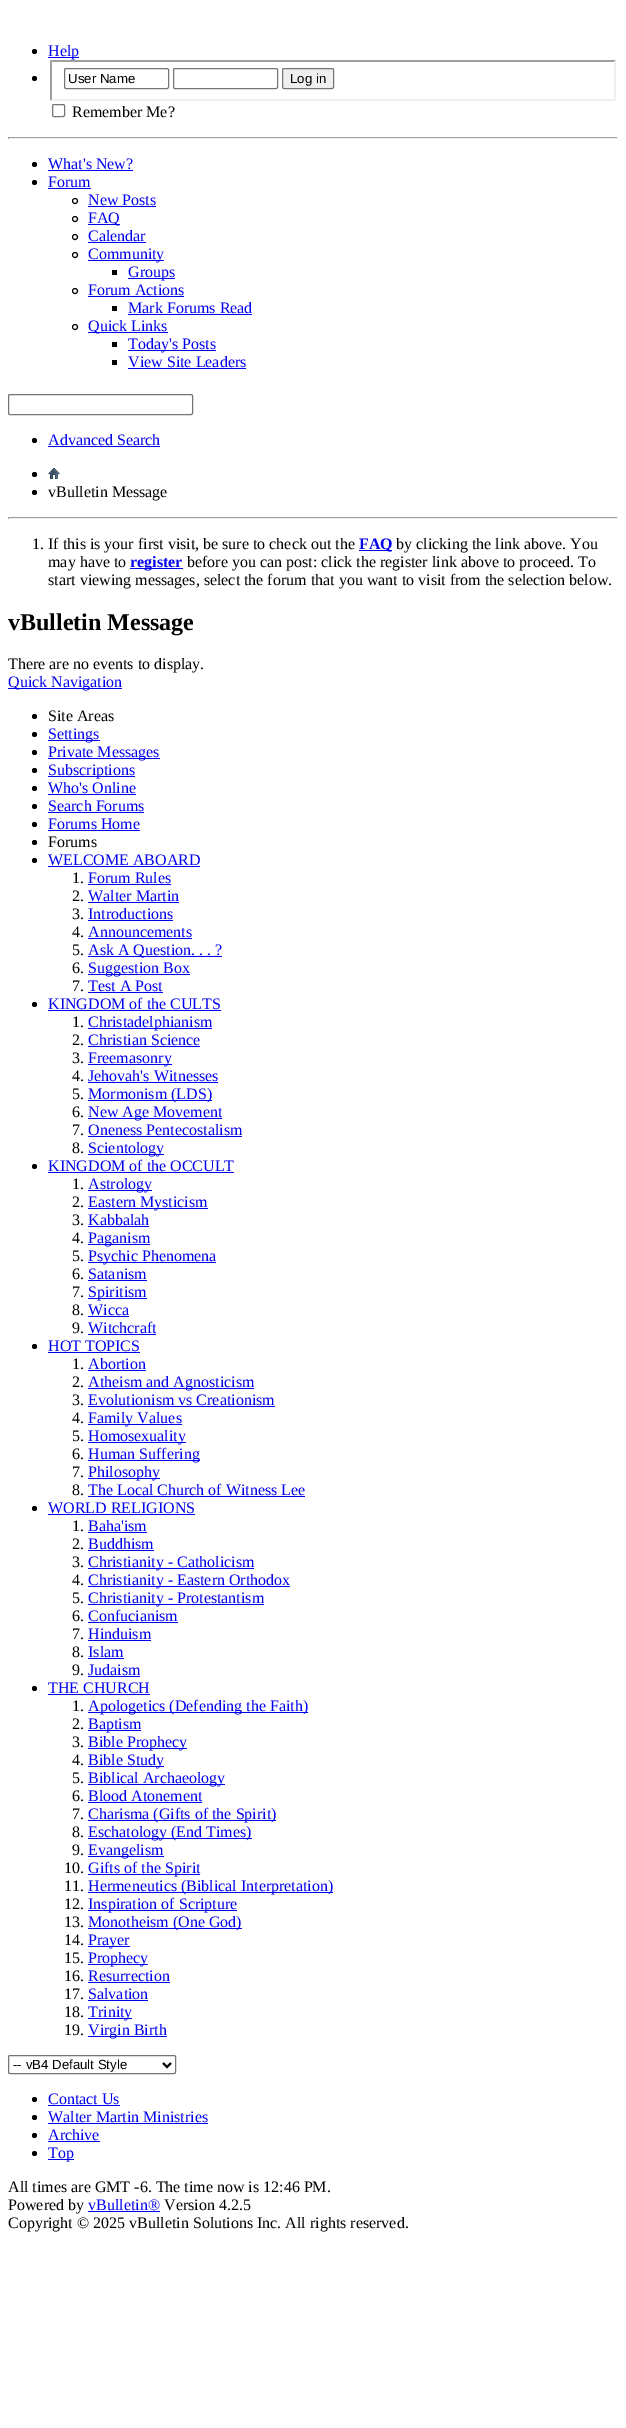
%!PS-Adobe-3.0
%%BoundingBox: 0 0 626 2428
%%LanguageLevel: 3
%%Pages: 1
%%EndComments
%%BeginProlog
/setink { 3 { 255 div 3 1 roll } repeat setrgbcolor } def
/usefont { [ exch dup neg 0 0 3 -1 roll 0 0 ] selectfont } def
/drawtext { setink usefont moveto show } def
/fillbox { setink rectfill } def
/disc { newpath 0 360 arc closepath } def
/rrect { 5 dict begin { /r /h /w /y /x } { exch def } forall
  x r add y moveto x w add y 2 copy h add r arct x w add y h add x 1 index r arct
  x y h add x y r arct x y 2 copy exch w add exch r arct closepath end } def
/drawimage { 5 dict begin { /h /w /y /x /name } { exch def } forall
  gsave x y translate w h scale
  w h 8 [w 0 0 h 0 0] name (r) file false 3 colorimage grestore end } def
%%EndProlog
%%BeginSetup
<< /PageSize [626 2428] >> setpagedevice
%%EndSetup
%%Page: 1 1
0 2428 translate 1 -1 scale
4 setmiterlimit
0 0 626 2428 255 255 255 fillbox
0 0 0 setink
34.5 51.5 2.5 disc fill
48 57 31 1 0 0 238 fillbox
(Help) 48 56 /LiberationSerif-Regular 16 0 0 238 drawtext
0 0 0 setink
34.5 78.5 2.5 disc fill
159 159 159 setink
50 60 moveto 616 60 lineto 614 62 lineto 52 62 lineto closepath fill
239 239 239 setink
616 60 moveto 616 101 lineto 614 99 lineto 614 62 lineto closepath fill
616 101 moveto 50 101 lineto 52 99 lineto 614 99 lineto closepath fill
159 159 159 setink
50 101 moveto 50 60 lineto 52 62 lineto 52 99 lineto closepath fill
118 118 118 setink
64.5 68.5 104 20 1.5 rrect stroke
(User Name) 68 83 /LiberationSans-Regular 13.25 0 0 0 drawtext
118 118 118 setink
173.5 68.5 104 20 1.5 rrect stroke
239 239 239 setink
282.5 68.5 51 20 1.5 rrect gsave fill grestore
118 118 118 setink
stroke
(Log in) 290 83 /LiberationSans-Regular 13.25 0 0 0 drawtext
118 118 118 setink
52.5 104.5 12 12 1.5 rrect stroke
(Remember Me?) 72 117 /LiberationSerif-Regular 16 0 0 0 drawtext
8 137 610 1 159 159 159 fillbox
617 137 1 2 238 238 238 fillbox
8 138 610 1 238 238 238 fillbox
8 137 1 2 159 159 159 fillbox
0 0 0 setink
34.5 164.5 2.5 disc fill
(What's New?) 48 169 /LiberationSerif-Regular 16 0 0 238 drawtext
48 170 85 1 0 0 238 fillbox
0 0 0 setink
34.5 182.5 2.5 disc fill
(Forum) 48 187 /LiberationSerif-Regular 16 0 0 238 drawtext
48 188 43 1 0 0 238 fillbox
0 0 0 setink
75 201 2.5 disc stroke
(New Posts) 88 205 /LiberationSerif-Regular 16 0 0 238 drawtext
88 206 68 1 0 0 238 fillbox
0 0 0 setink
75 219 2.5 disc stroke
88 224 32 1 0 0 238 fillbox
(FAQ) 88 223 /LiberationSerif-Regular 16 0 0 238 drawtext
0 0 0 setink
75 237 2.5 disc stroke
(Calendar) 88 241 /LiberationSerif-Regular 16 0 0 238 drawtext
88 242 58 1 0 0 238 fillbox
0 0 0 setink
75 255 2.5 disc stroke
88 260 76 1 0 0 238 fillbox
(Community) 88 259 /LiberationSerif-Regular 16 0 0 238 drawtext
112 270 5 5 0 0 0 fillbox
128 278 47 1 0 0 238 fillbox
(Groups) 128 277 /LiberationSerif-Regular 16 0 0 238 drawtext
0 0 0 setink
75 291 2.5 disc stroke
(Forum Actions) 88 295 /LiberationSerif-Regular 16 0 0 238 drawtext
88 296 96 1 0 0 238 fillbox
112 306 5 5 0 0 0 fillbox
(Mark Forums Read) 128 313 /LiberationSerif-Regular 16 0 0 238 drawtext
128 314 124 1 0 0 238 fillbox
0 0 0 setink
75 327 2.5 disc stroke
88 332 80 1 0 0 238 fillbox
(Quick Links) 88 331 /LiberationSerif-Regular 16 0 0 238 drawtext
112 342 5 5 0 0 0 fillbox
128 350 88 1 0 0 238 fillbox
(Today's Posts) 128 349 /LiberationSerif-Regular 16 0 0 238 drawtext
112 360 5 5 0 0 0 fillbox
(View Site Leaders) 128 367 /LiberationSerif-Regular 16 0 0 238 drawtext
128 368 118 1 0 0 238 fillbox
118 118 118 setink
8.5 394.5 184 20 1.5 rrect stroke
0 0 0 setink
34.5 440.5 2.5 disc fill
(Advanced Search) 48 445 /LiberationSerif-Regular 16 0 0 238 drawtext
48 446 112 1 0 0 238 fillbox
0 0 0 setink
34.5 474.5 2.5 disc fill
(assets/img1.rgb) 48 468 12 11 drawimage
34.5 492.5 2.5 disc fill
(vBulletin Message) 48 497 /LiberationSerif-Regular 16 0 0 0 drawtext
8 517 610 1 159 159 159 fillbox
617 517 1 2 238 238 238 fillbox
8 518 610 1 238 238 238 fillbox
8 517 1 2 159 159 159 fillbox
(1. If this is your first visit, be sure to check out the) 32 549 /LiberationSerif-Regular 16 0 0 0 drawtext
359 550 33 1 0 0 238 fillbox
(FAQ) 359 549 /LiberationSerif-Bold 16 0 0 238 drawtext
(by clicking the link above. You) 396 549 /LiberationSerif-Regular 16 0 0 0 drawtext
(may have to) 48 567 /LiberationSerif-Regular 16 0 0 0 drawtext
130 568 53 1 0 0 238 fillbox
(register) 130 567 /LiberationSerif-Bold 16 0 0 238 drawtext
(before you can post: click the register link above to proceed. To) 187 567 /LiberationSerif-Regular 16 0 0 0 drawtext
(start viewing messages, select the forum that you want to visit from the selection below.) 48 585 /LiberationSerif-Regular 16 0 0 0 drawtext
(vBulletin Message) 8 630 /LiberationSerif-Bold 24 0 0 0 drawtext
(There are no events to display.) 8 669 /LiberationSerif-Regular 16 0 0 0 drawtext
8 688 114 1 0 0 238 fillbox
(Quick Navigation) 8 687 /LiberationSerif-Regular 16 0 0 238 drawtext
0 0 0 setink
34.5 716.5 2.5 disc fill
(Site Areas) 48 721 /LiberationSerif-Regular 16 0 0 0 drawtext
34.5 734.5 2.5 disc fill
48 740 52 1 0 0 238 fillbox
(Settings) 48 739 /LiberationSerif-Regular 16 0 0 238 drawtext
0 0 0 setink
34.5 752.5 2.5 disc fill
48 758 112 1 0 0 238 fillbox
(Private Messages) 48 757 /LiberationSerif-Regular 16 0 0 238 drawtext
0 0 0 setink
34.5 770.5 2.5 disc fill
48 776 87 1 0 0 238 fillbox
(Subscriptions) 48 775 /LiberationSerif-Regular 16 0 0 238 drawtext
0 0 0 setink
34.5 788.5 2.5 disc fill
(Who's Online) 48 793 /LiberationSerif-Regular 16 0 0 238 drawtext
48 794 88 1 0 0 238 fillbox
0 0 0 setink
34.5 806.5 2.5 disc fill
(Search Forums) 48 811 /LiberationSerif-Regular 16 0 0 238 drawtext
48 812 96 1 0 0 238 fillbox
0 0 0 setink
34.5 824.5 2.5 disc fill
(Forums Home) 48 829 /LiberationSerif-Regular 16 0 0 238 drawtext
48 830 92 1 0 0 238 fillbox
0 0 0 setink
34.5 842.5 2.5 disc fill
(Forums) 48 847 /LiberationSerif-Regular 16 0 0 0 drawtext
34.5 860.5 2.5 disc fill
(WELCOME ABOARD) 48 865 /LiberationSerif-Regular 16 0 0 238 drawtext
48 866 152 1 0 0 238 fillbox
(1.) 72 883 /LiberationSerif-Regular 16 0 0 0 drawtext
(Forum Rules) 88 883 /LiberationSerif-Regular 16 0 0 238 drawtext
88 884 83 1 0 0 238 fillbox
(2.) 72 901 /LiberationSerif-Regular 16 0 0 0 drawtext
(Walter Martin) 88 901 /LiberationSerif-Regular 16 0 0 238 drawtext
88 902 91 1 0 0 238 fillbox
(3.) 72 919 /LiberationSerif-Regular 16 0 0 0 drawtext
(Introductions) 88 919 /LiberationSerif-Regular 16 0 0 238 drawtext
88 920 85 1 0 0 238 fillbox
(4.) 72 937 /LiberationSerif-Regular 16 0 0 0 drawtext
(Announcements) 88 937 /LiberationSerif-Regular 16 0 0 238 drawtext
88 938 104 1 0 0 238 fillbox
(5.) 72 955 /LiberationSerif-Regular 16 0 0 0 drawtext
88 956 134 1 0 0 238 fillbox
(Ask A Question. . . ?) 88 955 /LiberationSerif-Regular 16 0 0 238 drawtext
(6.) 72 973 /LiberationSerif-Regular 16 0 0 0 drawtext
88 974 102 1 0 0 238 fillbox
(Suggestion Box) 88 973 /LiberationSerif-Regular 16 0 0 238 drawtext
(7.) 72 991 /LiberationSerif-Regular 16 0 0 0 drawtext
(Test A Post) 88 991 /LiberationSerif-Regular 16 0 0 238 drawtext
88 992 75 1 0 0 238 fillbox
0 0 0 setink
34.5 1004.5 2.5 disc fill
(KINGDOM of the CULTS) 48 1009 /LiberationSerif-Regular 16 0 0 238 drawtext
48 1010 173 1 0 0 238 fillbox
(1.) 72 1027 /LiberationSerif-Regular 16 0 0 0 drawtext
88 1028 124 1 0 0 238 fillbox
(Christadelphianism) 88 1027 /LiberationSerif-Regular 16 0 0 238 drawtext
(2.) 72 1045 /LiberationSerif-Regular 16 0 0 0 drawtext
(Christian Science) 88 1045 /LiberationSerif-Regular 16 0 0 238 drawtext
88 1046 112 1 0 0 238 fillbox
(3.) 72 1063 /LiberationSerif-Regular 16 0 0 0 drawtext
88 1064 84 1 0 0 238 fillbox
(Freemasonry) 88 1063 /LiberationSerif-Regular 16 0 0 238 drawtext
(4.) 72 1081 /LiberationSerif-Regular 16 0 0 0 drawtext
(Jehovah's Witnesses) 88 1081 /LiberationSerif-Regular 16 0 0 238 drawtext
88 1082 130 1 0 0 238 fillbox
(5.) 72 1099 /LiberationSerif-Regular 16 0 0 0 drawtext
88 1100 124 1 0 0 238 fillbox
(Mormonism \(LDS\)) 88 1099 /LiberationSerif-Regular 16 0 0 238 drawtext
(6.) 72 1117 /LiberationSerif-Regular 16 0 0 0 drawtext
88 1118 134 1 0 0 238 fillbox
(New Age Movement) 88 1117 /LiberationSerif-Regular 16 0 0 238 drawtext
(7.) 72 1135 /LiberationSerif-Regular 16 0 0 0 drawtext
(Oneness Pentecostalism) 88 1135 /LiberationSerif-Regular 16 0 0 238 drawtext
88 1136 154 1 0 0 238 fillbox
(8.) 72 1153 /LiberationSerif-Regular 16 0 0 0 drawtext
88 1154 76 1 0 0 238 fillbox
(Scientology) 88 1153 /LiberationSerif-Regular 16 0 0 238 drawtext
0 0 0 setink
34.5 1166.5 2.5 disc fill
(KINGDOM of the OCCULT) 48 1171 /LiberationSerif-Regular 16 0 0 238 drawtext
48 1172 186 1 0 0 238 fillbox
(1.) 72 1189 /LiberationSerif-Regular 16 0 0 0 drawtext
88 1190 64 1 0 0 238 fillbox
(Astrology) 88 1189 /LiberationSerif-Regular 16 0 0 238 drawtext
(2.) 72 1207 /LiberationSerif-Regular 16 0 0 0 drawtext
88 1208 120 1 0 0 238 fillbox
(Eastern Mysticism) 88 1207 /LiberationSerif-Regular 16 0 0 238 drawtext
(3.) 72 1225 /LiberationSerif-Regular 16 0 0 0 drawtext
(Kabbalah) 88 1225 /LiberationSerif-Regular 16 0 0 238 drawtext
88 1226 61 1 0 0 238 fillbox
(4.) 72 1243 /LiberationSerif-Regular 16 0 0 0 drawtext
88 1244 62 1 0 0 238 fillbox
(Paganism) 88 1243 /LiberationSerif-Regular 16 0 0 238 drawtext
(5.) 72 1261 /LiberationSerif-Regular 16 0 0 0 drawtext
88 1262 128 1 0 0 238 fillbox
(Psychic Phenomena) 88 1261 /LiberationSerif-Regular 16 0 0 238 drawtext
(6.) 72 1279 /LiberationSerif-Regular 16 0 0 0 drawtext
(Satanism) 88 1279 /LiberationSerif-Regular 16 0 0 238 drawtext
88 1280 59 1 0 0 238 fillbox
(7.) 72 1297 /LiberationSerif-Regular 16 0 0 0 drawtext
88 1298 59 1 0 0 238 fillbox
(Spiritism) 88 1297 /LiberationSerif-Regular 16 0 0 238 drawtext
(8.) 72 1315 /LiberationSerif-Regular 16 0 0 0 drawtext
(Wicca) 88 1315 /LiberationSerif-Regular 16 0 0 238 drawtext
88 1316 41 1 0 0 238 fillbox
(9.) 72 1333 /LiberationSerif-Regular 16 0 0 0 drawtext
(Witchcraft) 88 1333 /LiberationSerif-Regular 16 0 0 238 drawtext
88 1334 68 1 0 0 238 fillbox
0 0 0 setink
34.5 1346.5 2.5 disc fill
(HOT TOPICS) 48 1351 /LiberationSerif-Regular 16 0 0 238 drawtext
48 1352 92 1 0 0 238 fillbox
(1.) 72 1369 /LiberationSerif-Regular 16 0 0 0 drawtext
(Abortion) 88 1369 /LiberationSerif-Regular 16 0 0 238 drawtext
88 1370 58 1 0 0 238 fillbox
(2.) 72 1387 /LiberationSerif-Regular 16 0 0 0 drawtext
88 1388 166 1 0 0 238 fillbox
(Atheism and Agnosticism) 88 1387 /LiberationSerif-Regular 16 0 0 238 drawtext
(3.) 72 1405 /LiberationSerif-Regular 16 0 0 0 drawtext
(Evolutionism vs Creationism) 88 1405 /LiberationSerif-Regular 16 0 0 238 drawtext
88 1406 187 1 0 0 238 fillbox
(4.) 72 1423 /LiberationSerif-Regular 16 0 0 0 drawtext
88 1424 94 1 0 0 238 fillbox
(Family Values) 88 1423 /LiberationSerif-Regular 16 0 0 238 drawtext
(5.) 72 1441 /LiberationSerif-Regular 16 0 0 0 drawtext
88 1442 98 1 0 0 238 fillbox
(Homosexuality) 88 1441 /LiberationSerif-Regular 16 0 0 238 drawtext
(6.) 72 1459 /LiberationSerif-Regular 16 0 0 0 drawtext
88 1460 112 1 0 0 238 fillbox
(Human Suffering) 88 1459 /LiberationSerif-Regular 16 0 0 238 drawtext
(7.) 72 1477 /LiberationSerif-Regular 16 0 0 0 drawtext
88 1478 72 1 0 0 238 fillbox
(Philosophy) 88 1477 /LiberationSerif-Regular 16 0 0 238 drawtext
(8.) 72 1495 /LiberationSerif-Regular 16 0 0 0 drawtext
(The Local Church of Witness Lee) 88 1495 /LiberationSerif-Regular 16 0 0 238 drawtext
88 1496 217 1 0 0 238 fillbox
0 0 0 setink
34.5 1508.5 2.5 disc fill
(WORLD RELIGIONS) 48 1513 /LiberationSerif-Regular 16 0 0 238 drawtext
48 1514 147 1 0 0 238 fillbox
(1.) 72 1531 /LiberationSerif-Regular 16 0 0 0 drawtext
(Baha'ism) 88 1531 /LiberationSerif-Regular 16 0 0 238 drawtext
88 1532 59 1 0 0 238 fillbox
(2.) 72 1549 /LiberationSerif-Regular 16 0 0 0 drawtext
(Buddhism) 88 1549 /LiberationSerif-Regular 16 0 0 238 drawtext
88 1550 66 1 0 0 238 fillbox
(3.) 72 1567 /LiberationSerif-Regular 16 0 0 0 drawtext
88 1568 166 1 0 0 238 fillbox
(Christianity - Catholicism) 88 1567 /LiberationSerif-Regular 16 0 0 238 drawtext
(4.) 72 1585 /LiberationSerif-Regular 16 0 0 0 drawtext
88 1586 202 1 0 0 238 fillbox
(Christianity - Eastern Orthodox) 88 1585 /LiberationSerif-Regular 16 0 0 238 drawtext
(5.) 72 1603 /LiberationSerif-Regular 16 0 0 0 drawtext
88 1604 176 1 0 0 238 fillbox
(Christianity - Protestantism) 88 1603 /LiberationSerif-Regular 16 0 0 238 drawtext
(6.) 72 1621 /LiberationSerif-Regular 16 0 0 0 drawtext
(Confucianism) 88 1621 /LiberationSerif-Regular 16 0 0 238 drawtext
88 1622 90 1 0 0 238 fillbox
(7.) 72 1639 /LiberationSerif-Regular 16 0 0 0 drawtext
(Hinduism) 88 1639 /LiberationSerif-Regular 16 0 0 238 drawtext
88 1640 63 1 0 0 238 fillbox
(8.) 72 1657 /LiberationSerif-Regular 16 0 0 0 drawtext
(Islam) 88 1657 /LiberationSerif-Regular 16 0 0 238 drawtext
88 1658 36 1 0 0 238 fillbox
(9.) 72 1675 /LiberationSerif-Regular 16 0 0 0 drawtext
(Judaism) 88 1675 /LiberationSerif-Regular 16 0 0 238 drawtext
88 1676 52 1 0 0 238 fillbox
0 0 0 setink
34.5 1688.5 2.5 disc fill
(THE CHURCH) 48 1693 /LiberationSerif-Regular 16 0 0 238 drawtext
48 1694 102 1 0 0 238 fillbox
(1.) 72 1711 /LiberationSerif-Regular 16 0 0 0 drawtext
88 1712 220 1 0 0 238 fillbox
(Apologetics \(Defending the Faith\)) 88 1711 /LiberationSerif-Regular 16 0 0 238 drawtext
(2.) 72 1729 /LiberationSerif-Regular 16 0 0 0 drawtext
88 1730 53 1 0 0 238 fillbox
(Baptism) 88 1729 /LiberationSerif-Regular 16 0 0 238 drawtext
(3.) 72 1747 /LiberationSerif-Regular 16 0 0 0 drawtext
88 1748 99 1 0 0 238 fillbox
(Bible Prophecy) 88 1747 /LiberationSerif-Regular 16 0 0 238 drawtext
(4.) 72 1765 /LiberationSerif-Regular 16 0 0 0 drawtext
88 1766 76 1 0 0 238 fillbox
(Bible Study) 88 1765 /LiberationSerif-Regular 16 0 0 238 drawtext
(5.) 72 1783 /LiberationSerif-Regular 16 0 0 0 drawtext
88 1784 137 1 0 0 238 fillbox
(Biblical Archaeology) 88 1783 /LiberationSerif-Regular 16 0 0 238 drawtext
(6.) 72 1801 /LiberationSerif-Regular 16 0 0 0 drawtext
(Blood Atonement) 88 1801 /LiberationSerif-Regular 16 0 0 238 drawtext
88 1802 114 1 0 0 238 fillbox
(7.) 72 1819 /LiberationSerif-Regular 16 0 0 0 drawtext
88 1820 188 1 0 0 238 fillbox
(Charisma \(Gifts of the Spirit\)) 88 1819 /LiberationSerif-Regular 16 0 0 238 drawtext
(8.) 72 1837 /LiberationSerif-Regular 16 0 0 0 drawtext
88 1838 164 1 0 0 238 fillbox
(Eschatology \(End Times\)) 88 1837 /LiberationSerif-Regular 16 0 0 238 drawtext
(9.) 72 1855 /LiberationSerif-Regular 16 0 0 0 drawtext
88 1856 76 1 0 0 238 fillbox
(Evangelism) 88 1855 /LiberationSerif-Regular 16 0 0 238 drawtext
(10.) 64 1873 /LiberationSerif-Regular 16 0 0 0 drawtext
88 1874 112 1 0 0 238 fillbox
(Gifts of the Spirit) 88 1873 /LiberationSerif-Regular 16 0 0 238 drawtext
(11.) 64 1891 /LiberationSerif-Regular 16 0 0 0 drawtext
88 1892 245 1 0 0 238 fillbox
(Hermeneutics \(Biblical Interpretation\)) 88 1891 /LiberationSerif-Regular 16 0 0 238 drawtext
(12.) 64 1909 /LiberationSerif-Regular 16 0 0 0 drawtext
88 1910 149 1 0 0 238 fillbox
(Inspiration of Scripture) 88 1909 /LiberationSerif-Regular 16 0 0 238 drawtext
(13.) 64 1927 /LiberationSerif-Regular 16 0 0 0 drawtext
88 1928 154 1 0 0 238 fillbox
(Monotheism \(One God\)) 88 1927 /LiberationSerif-Regular 16 0 0 238 drawtext
(14.) 64 1945 /LiberationSerif-Regular 16 0 0 0 drawtext
88 1946 42 1 0 0 238 fillbox
(Prayer) 88 1945 /LiberationSerif-Regular 16 0 0 238 drawtext
(15.) 64 1963 /LiberationSerif-Regular 16 0 0 0 drawtext
88 1964 60 1 0 0 238 fillbox
(Prophecy) 88 1963 /LiberationSerif-Regular 16 0 0 238 drawtext
(16.) 64 1981 /LiberationSerif-Regular 16 0 0 0 drawtext
(Resurrection) 88 1981 /LiberationSerif-Regular 16 0 0 238 drawtext
88 1982 82 1 0 0 238 fillbox
(17.) 64 1999 /LiberationSerif-Regular 16 0 0 0 drawtext
(Salvation) 88 1999 /LiberationSerif-Regular 16 0 0 238 drawtext
88 2000 60 1 0 0 238 fillbox
(18.) 64 2017 /LiberationSerif-Regular 16 0 0 0 drawtext
88 2018 44 1 0 0 238 fillbox
(Trinity) 88 2017 /LiberationSerif-Regular 16 0 0 238 drawtext
(19.) 64 2035 /LiberationSerif-Regular 16 0 0 0 drawtext
88 2036 79 1 0 0 238 fillbox
(Virgin Birth) 88 2035 /LiberationSerif-Regular 16 0 0 238 drawtext
118 118 118 setink
8.5 2055.5 167 18 1.5 rrect stroke
0 0 0 setink
2 setlinewidth
163 2063 moveto 167 2067 lineto 171 2063 lineto stroke
(-- vB4 Default Style) 13 2069 /LiberationSans-Regular 13.25 0 0 0 drawtext
34.5 2099.5 2.5 disc fill
(Contact Us) 48 2104 /LiberationSerif-Regular 16 0 0 238 drawtext
48 2105 72 1 0 0 238 fillbox
0 0 0 setink
34.5 2117.5 2.5 disc fill
(Walter Martin Ministries) 48 2122 /LiberationSerif-Regular 16 0 0 238 drawtext
48 2123 160 1 0 0 238 fillbox
0 0 0 setink
34.5 2135.5 2.5 disc fill
(Archive) 48 2140 /LiberationSerif-Regular 16 0 0 238 drawtext
48 2141 52 1 0 0 238 fillbox
0 0 0 setink
34.5 2153.5 2.5 disc fill
48 2159 26 1 0 0 238 fillbox
(Top) 48 2158 /LiberationSerif-Regular 16 0 0 238 drawtext
(All times are GMT -6. The time now is 12:46 PM.) 8 2192 /LiberationSerif-Regular 16 0 0 0 drawtext
(Powered by) 8 2210 /LiberationSerif-Regular 16 0 0 0 drawtext
(vBulletin®) 88 2210 /LiberationSerif-Regular 16 0 0 238 drawtext
88 2211 72 1 0 0 238 fillbox
(Version 4.2.5) 164 2210 /LiberationSerif-Regular 16 0 0 0 drawtext
(Copyright © 2025 vBulletin Solutions Inc. All rights reserved.) 8 2228 /LiberationSerif-Regular 16 0 0 0 drawtext
showpage
%%EOF
